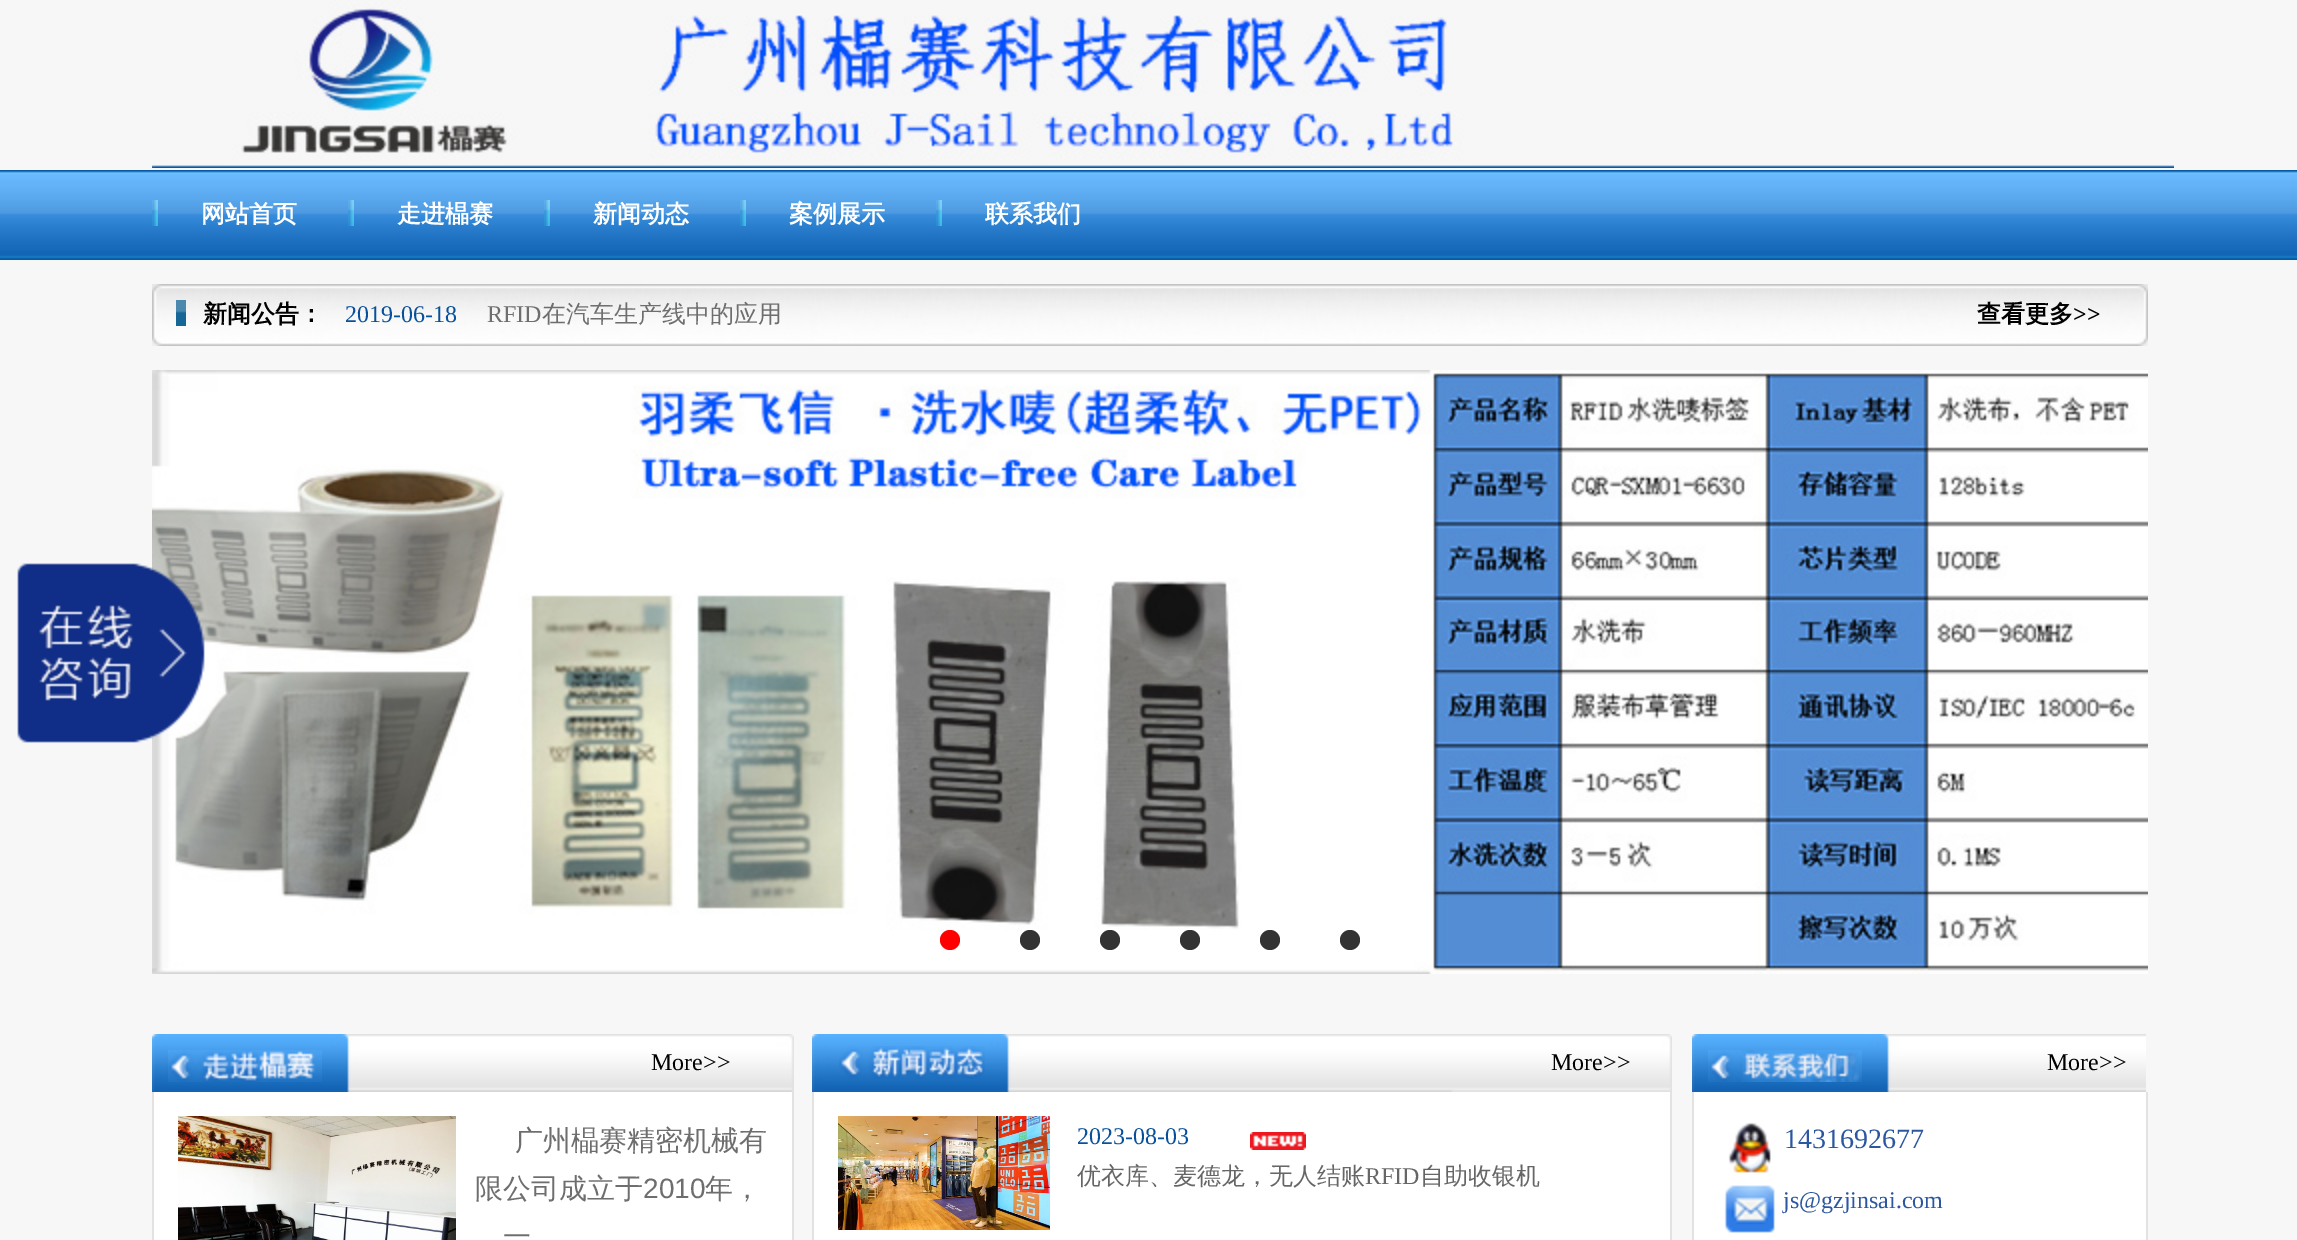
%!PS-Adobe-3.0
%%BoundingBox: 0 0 2297 1240
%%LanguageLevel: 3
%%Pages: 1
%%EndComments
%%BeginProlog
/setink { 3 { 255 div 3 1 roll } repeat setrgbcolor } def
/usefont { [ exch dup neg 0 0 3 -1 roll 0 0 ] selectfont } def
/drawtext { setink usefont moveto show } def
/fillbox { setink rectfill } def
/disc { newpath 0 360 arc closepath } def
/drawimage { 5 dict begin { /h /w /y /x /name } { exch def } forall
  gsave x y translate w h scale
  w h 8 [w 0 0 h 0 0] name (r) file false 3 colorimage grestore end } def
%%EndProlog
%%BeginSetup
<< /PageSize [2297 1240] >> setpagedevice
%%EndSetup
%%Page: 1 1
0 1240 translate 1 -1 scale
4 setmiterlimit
0 0 2297 1240 247 247 247 fillbox
(assets/img1.rgb) 152 0 2022 168 drawimage
(assets/img2.rgb) 0 170 2297 90 drawimage
(assets/img3.rgb) 152 200 6 26 drawimage
(网站首页) 201 222 /WenQuanYiZenHei-Bold 24 255 255 255 drawtext
(assets/img4.rgb) 348 200 6 26 drawimage
(走进橸赛) 397 222 /WenQuanYiZenHei-Bold 24 255 255 255 drawtext
(assets/img3.rgb) 544 200 6 26 drawimage
(新闻动态) 593 222 /WenQuanYiZenHei-Bold 24 255 255 255 drawtext
(assets/img4.rgb) 740 200 6 26 drawimage
(案例展示) 789 222 /WenQuanYiZenHei-Bold 24 255 255 255 drawtext
(assets/img3.rgb) 936 200 6 26 drawimage
(联系我们) 985 222 /WenQuanYiZenHei-Bold 24 255 255 255 drawtext
(assets/img8.rgb) 152 370 1996 604 drawimage
(assets/img5.rgb) 17 563 188 180 drawimage
(assets/img6.rgb) 152 284 1996 62 drawimage
(assets/img7.rgb) 176 300 10 26 drawimage
(新闻公告：) 203 322 /WenQuanYiZenHei-Bold 24 0 0 0 drawtext
(2019-06-18) 345 322 /LiberationSerif-Regular 24 7 80 155 drawtext
(RFID) 487 322 /LiberationSerif-Regular 24 110 110 110 drawtext
(在汽车生产线中的应用) 542 322 /WenQuanYiZenHei-Medium 24 110 110 110 drawtext
(查看更多) 1977 322 /WenQuanYiZenHei-Bold 24 0 0 0 drawtext
(>>) 2073 322 /LiberationSerif-Bold 24 0 0 0 drawtext
255 0 0 setink
950 940 10 disc fill
51 51 51 setink
1030 940 10 disc fill
1110 940 10 disc fill
1190 940 10 disc fill
1270 940 10 disc fill
1350 940 10 disc fill
(assets/img9.rgb) 152 1034 642 58 drawimage
(assets/img10.rgb) 168 1050 154 32 drawimage
(More>>) 651 1070 /LiberationSerif-Regular 24 0 0 0 drawtext
154 1092 638 148 255 255 255 fillbox
792 1092 2 148 226 226 226 fillbox
152 1092 2 148 226 226 226 fillbox
(assets/img11.rgb) 178 1116 278 124 drawimage
(广州橸赛精密机械有) 515 1150 /WenQuanYiZenHei-Medium 28 110 110 110 drawtext
(限公司成立于) 475 1198 /WenQuanYiZenHei-Medium 28 110 110 110 drawtext
(2010) 643 1198 /LiberationSans-Regular 28 110 110 110 drawtext
(年，) 705 1198 /WenQuanYiZenHei-Medium 28 110 110 110 drawtext
(一) 503 1246 /WenQuanYiZenHei-Medium 28 110 110 110 drawtext
(assets/img12.rgb) 812 1034 860 58 drawimage
(assets/img13.rgb) 839 1046 146 33 drawimage
(More>>) 1551 1070 /LiberationSerif-Regular 24 0 0 0 drawtext
814 1092 856 148 255 255 255 fillbox
1670 1092 2 148 226 226 226 fillbox
812 1092 2 148 226 226 226 fillbox
(assets/img14.rgb) 838 1116 212 114 drawimage
(assets/img15.rgb) 1250 1132 56 18 drawimage
(2023-08-03) 1077 1144 /LiberationSerif-Regular 24 7 80 155 drawtext
(优衣库、麦德龙，无人结账) 1077 1184 /WenQuanYiZenHei-Medium 24 102 102 102 drawtext
(RFID) 1365 1184 /LiberationSerif-Regular 24 102 102 102 drawtext
(自助收银机) 1420 1184 /WenQuanYiZenHei-Medium 24 102 102 102 drawtext
(assets/img16.rgb) 1692 1034 454 58 drawimage
(assets/img17.rgb) 1708 1050 154 32 drawimage
(More>>) 2047 1070 /LiberationSerif-Regular 24 0 0 0 drawtext
1694 1092 452 148 255 255 255 fillbox
2146 1092 2 148 226 226 226 fillbox
1692 1092 2 148 226 226 226 fillbox
(assets/img18.rgb) 1728 1122 43 51 drawimage
(1431692677) 1784 1148 /LiberationSerif-Regular 28 43 87 161 drawtext
(assets/img19.rgb) 1724 1185 51 48 drawimage
(js@gzjinsai.com) 1783 1208 /LiberationSerif-Regular 24 43 87 161 drawtext
showpage
%%EOF
